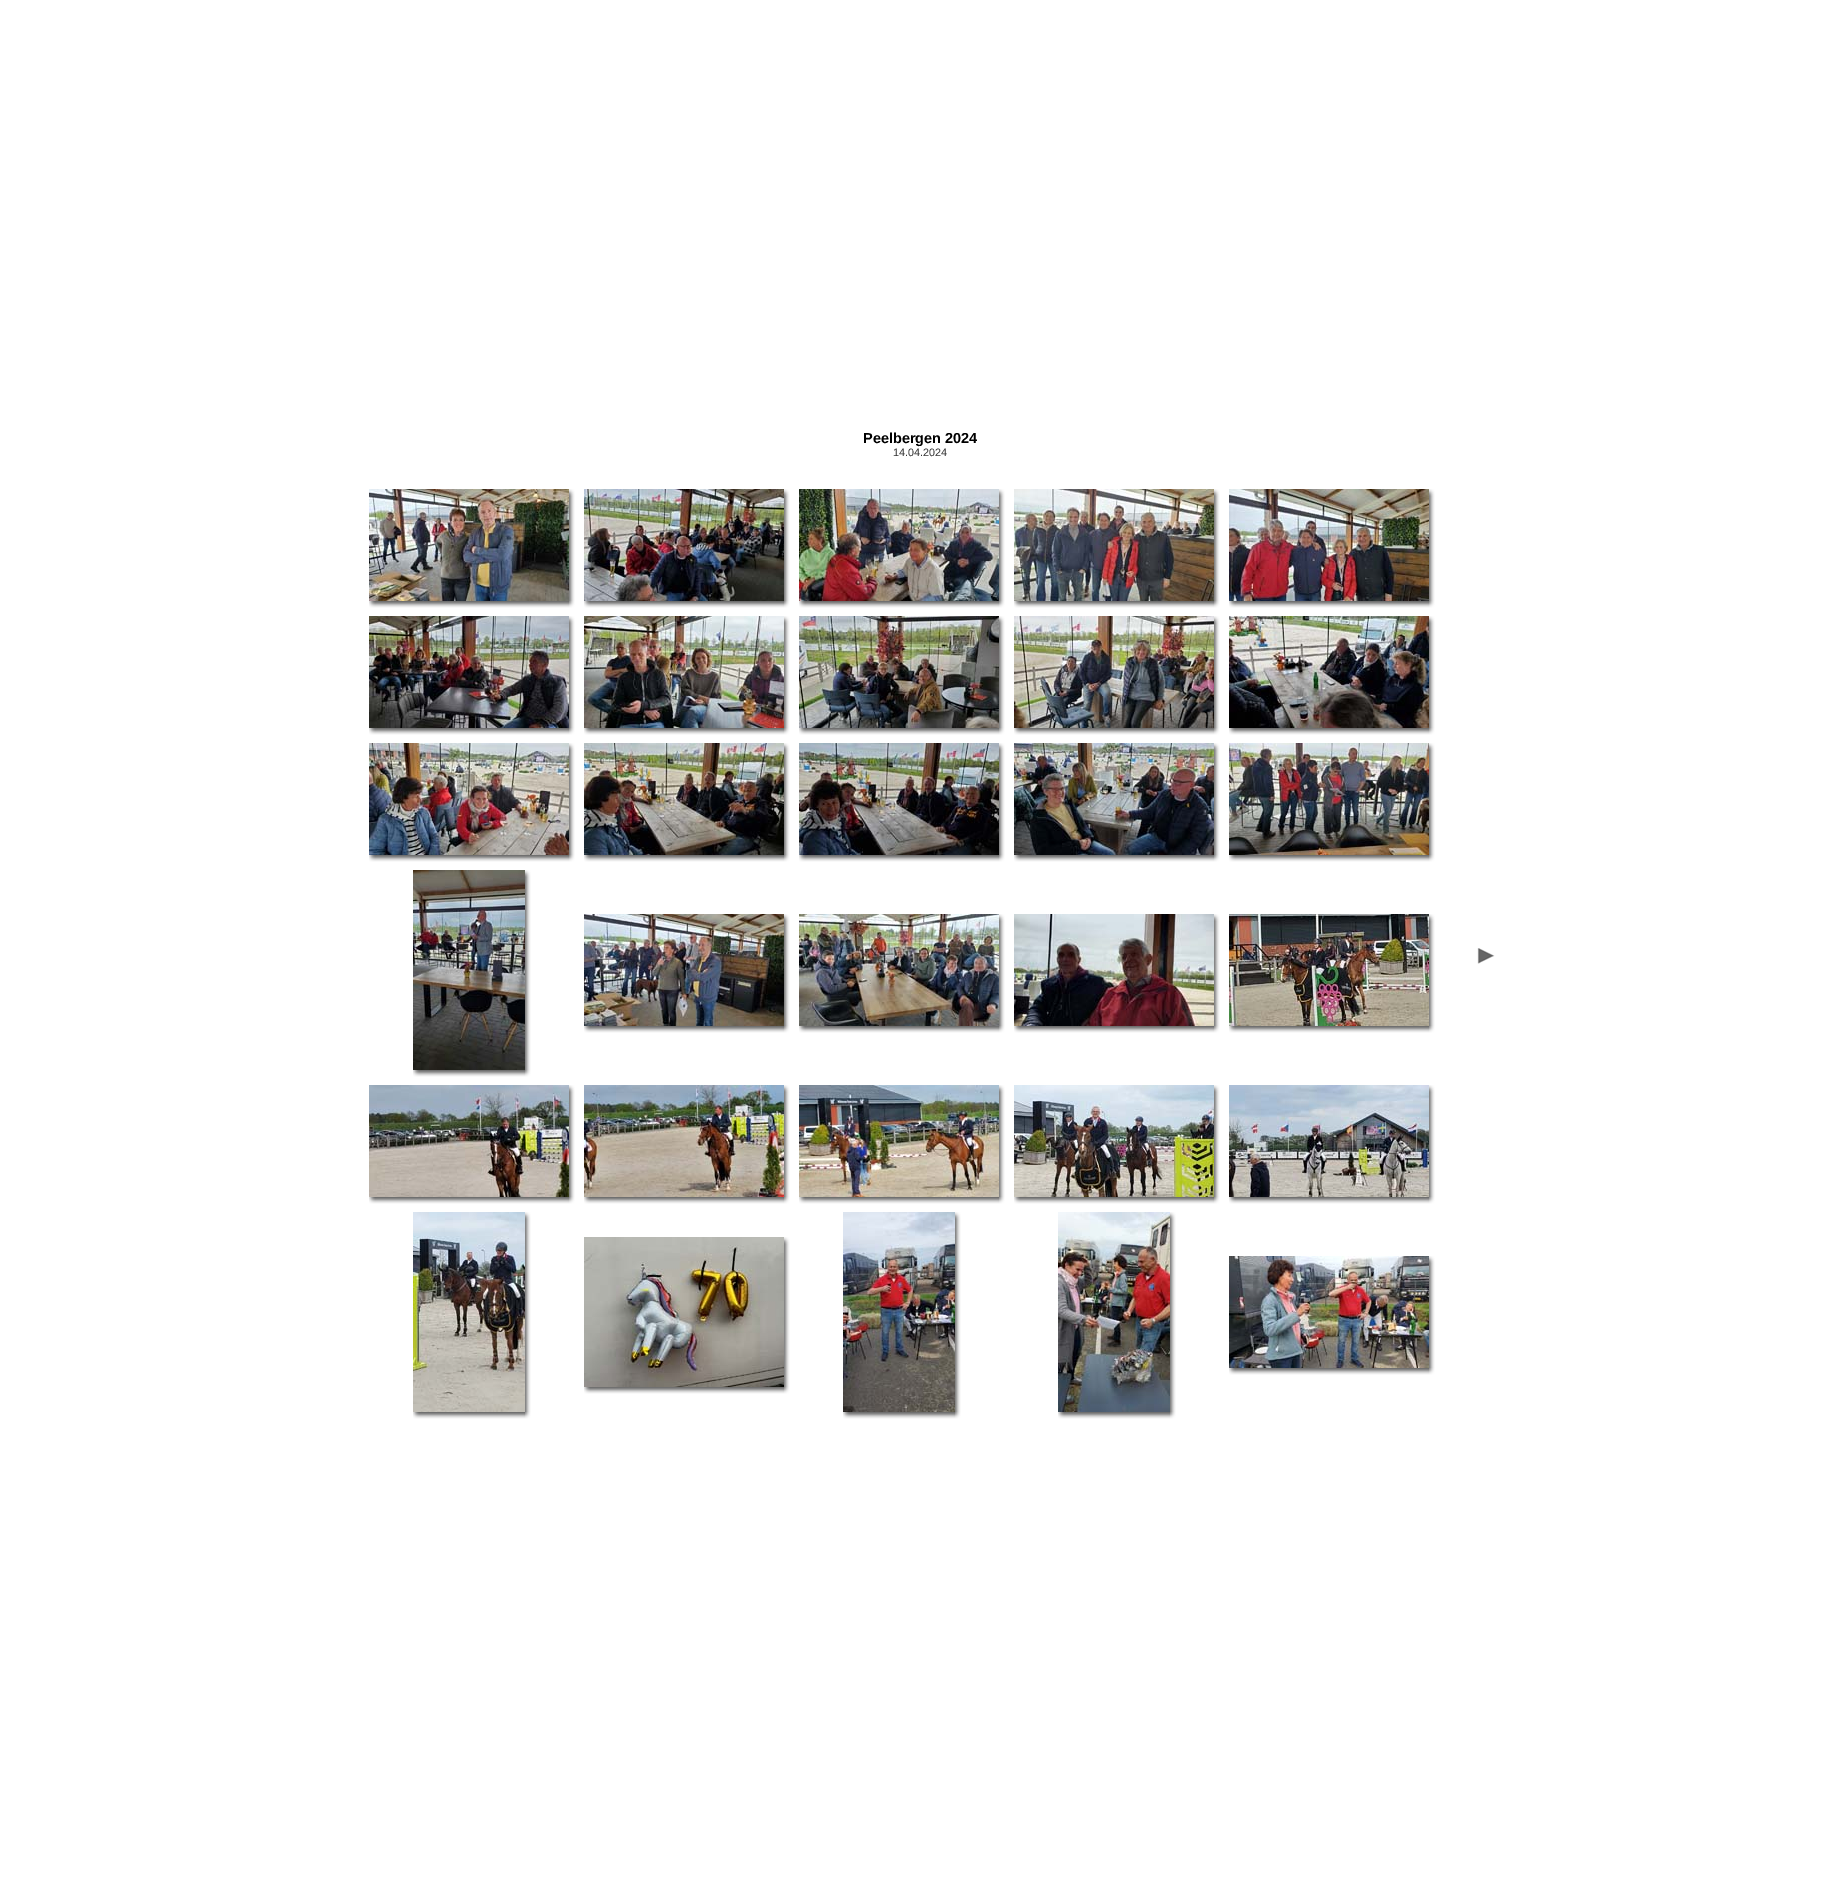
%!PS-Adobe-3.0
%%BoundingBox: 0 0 1834 1882
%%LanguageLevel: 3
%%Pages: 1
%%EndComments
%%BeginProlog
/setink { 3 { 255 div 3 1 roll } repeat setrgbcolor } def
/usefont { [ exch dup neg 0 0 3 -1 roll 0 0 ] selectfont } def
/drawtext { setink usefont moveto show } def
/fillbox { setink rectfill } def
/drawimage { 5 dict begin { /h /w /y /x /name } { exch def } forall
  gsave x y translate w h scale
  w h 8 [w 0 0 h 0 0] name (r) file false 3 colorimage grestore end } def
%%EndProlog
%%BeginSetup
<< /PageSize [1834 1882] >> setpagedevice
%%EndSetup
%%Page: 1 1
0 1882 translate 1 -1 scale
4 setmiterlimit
0 0 1834 1882 255 255 255 fillbox
(Peelbergen 2024) 863 443 /LiberationSans-Bold 14.5 0 0 0 drawtext
(14.04.2024) 893 456 /LiberationSans-Regular 10.75 51 51 51 drawtext
(assets/img1.rgb) 369 489 200 112 drawimage
(assets/img2.rgb) 569 496 6 105 drawimage
(assets/img3.rgb) 569 489 6 7 drawimage
(assets/img4.rgb) 375 601 194 7 drawimage
(assets/img5.rgb) 369 601 6 7 drawimage
(assets/img6.rgb) 569 601 6 7 drawimage
(assets/img7.rgb) 584 489 200 112 drawimage
(assets/img2.rgb) 784 496 6 105 drawimage
(assets/img3.rgb) 784 489 6 7 drawimage
(assets/img4.rgb) 590 601 194 7 drawimage
(assets/img5.rgb) 584 601 6 7 drawimage
(assets/img6.rgb) 784 601 6 7 drawimage
(assets/img8.rgb) 799 489 200 112 drawimage
(assets/img2.rgb) 999 496 6 105 drawimage
(assets/img3.rgb) 999 489 6 7 drawimage
(assets/img4.rgb) 805 601 194 7 drawimage
(assets/img5.rgb) 799 601 6 7 drawimage
(assets/img6.rgb) 999 601 6 7 drawimage
(assets/img9.rgb) 1014 489 200 112 drawimage
(assets/img2.rgb) 1214 496 6 105 drawimage
(assets/img3.rgb) 1214 489 6 7 drawimage
(assets/img4.rgb) 1020 601 194 7 drawimage
(assets/img5.rgb) 1014 601 6 7 drawimage
(assets/img6.rgb) 1214 601 6 7 drawimage
(assets/img10.rgb) 1229 489 200 112 drawimage
(assets/img2.rgb) 1429 496 6 105 drawimage
(assets/img3.rgb) 1429 489 6 7 drawimage
(assets/img4.rgb) 1235 601 194 7 drawimage
(assets/img5.rgb) 1229 601 6 7 drawimage
(assets/img6.rgb) 1429 601 6 7 drawimage
(assets/img11.rgb) 369 616 200 112 drawimage
(assets/img2.rgb) 569 623 6 105 drawimage
(assets/img3.rgb) 569 616 6 7 drawimage
(assets/img4.rgb) 375 728 194 7 drawimage
(assets/img5.rgb) 369 728 6 7 drawimage
(assets/img6.rgb) 569 728 6 7 drawimage
(assets/img12.rgb) 584 616 200 112 drawimage
(assets/img2.rgb) 784 623 6 105 drawimage
(assets/img3.rgb) 784 616 6 7 drawimage
(assets/img4.rgb) 590 728 194 7 drawimage
(assets/img5.rgb) 584 728 6 7 drawimage
(assets/img6.rgb) 784 728 6 7 drawimage
(assets/img13.rgb) 799 616 200 112 drawimage
(assets/img2.rgb) 999 623 6 105 drawimage
(assets/img3.rgb) 999 616 6 7 drawimage
(assets/img4.rgb) 805 728 194 7 drawimage
(assets/img5.rgb) 799 728 6 7 drawimage
(assets/img6.rgb) 999 728 6 7 drawimage
(assets/img14.rgb) 1014 616 200 112 drawimage
(assets/img2.rgb) 1214 623 6 105 drawimage
(assets/img3.rgb) 1214 616 6 7 drawimage
(assets/img4.rgb) 1020 728 194 7 drawimage
(assets/img5.rgb) 1014 728 6 7 drawimage
(assets/img6.rgb) 1214 728 6 7 drawimage
(assets/img15.rgb) 1229 616 200 112 drawimage
(assets/img2.rgb) 1429 623 6 105 drawimage
(assets/img3.rgb) 1429 616 6 7 drawimage
(assets/img4.rgb) 1235 728 194 7 drawimage
(assets/img5.rgb) 1229 728 6 7 drawimage
(assets/img6.rgb) 1429 728 6 7 drawimage
(assets/img16.rgb) 369 743 200 112 drawimage
(assets/img2.rgb) 569 750 6 105 drawimage
(assets/img3.rgb) 569 743 6 7 drawimage
(assets/img4.rgb) 375 855 194 7 drawimage
(assets/img5.rgb) 369 855 6 7 drawimage
(assets/img6.rgb) 569 855 6 7 drawimage
(assets/img17.rgb) 584 743 200 112 drawimage
(assets/img2.rgb) 784 750 6 105 drawimage
(assets/img3.rgb) 784 743 6 7 drawimage
(assets/img4.rgb) 590 855 194 7 drawimage
(assets/img5.rgb) 584 855 6 7 drawimage
(assets/img6.rgb) 784 855 6 7 drawimage
(assets/img18.rgb) 799 743 200 112 drawimage
(assets/img2.rgb) 999 750 6 105 drawimage
(assets/img3.rgb) 999 743 6 7 drawimage
(assets/img4.rgb) 805 855 194 7 drawimage
(assets/img5.rgb) 799 855 6 7 drawimage
(assets/img6.rgb) 999 855 6 7 drawimage
(assets/img19.rgb) 1014 743 200 112 drawimage
(assets/img2.rgb) 1214 750 6 105 drawimage
(assets/img3.rgb) 1214 743 6 7 drawimage
(assets/img4.rgb) 1020 855 194 7 drawimage
(assets/img5.rgb) 1014 855 6 7 drawimage
(assets/img6.rgb) 1214 855 6 7 drawimage
(assets/img20.rgb) 1229 743 200 112 drawimage
(assets/img2.rgb) 1429 750 6 105 drawimage
(assets/img3.rgb) 1429 743 6 7 drawimage
(assets/img4.rgb) 1235 855 194 7 drawimage
(assets/img5.rgb) 1229 855 6 7 drawimage
(assets/img6.rgb) 1429 855 6 7 drawimage
(assets/img21.rgb) 413 870 112 200 drawimage
(assets/img22.rgb) 525 877 6 193 drawimage
(assets/img3.rgb) 525 870 6 7 drawimage
(assets/img23.rgb) 419 1070 106 7 drawimage
(assets/img5.rgb) 413 1070 6 7 drawimage
(assets/img6.rgb) 525 1070 6 7 drawimage
(assets/img24.rgb) 584 914 200 112 drawimage
(assets/img2.rgb) 784 921 6 105 drawimage
(assets/img3.rgb) 784 914 6 7 drawimage
(assets/img4.rgb) 590 1026 194 7 drawimage
(assets/img5.rgb) 584 1026 6 7 drawimage
(assets/img6.rgb) 784 1026 6 7 drawimage
(assets/img25.rgb) 799 914 200 112 drawimage
(assets/img2.rgb) 999 921 6 105 drawimage
(assets/img3.rgb) 999 914 6 7 drawimage
(assets/img4.rgb) 805 1026 194 7 drawimage
(assets/img5.rgb) 799 1026 6 7 drawimage
(assets/img6.rgb) 999 1026 6 7 drawimage
(assets/img26.rgb) 1014 914 200 112 drawimage
(assets/img2.rgb) 1214 921 6 105 drawimage
(assets/img3.rgb) 1214 914 6 7 drawimage
(assets/img4.rgb) 1020 1026 194 7 drawimage
(assets/img5.rgb) 1014 1026 6 7 drawimage
(assets/img6.rgb) 1214 1026 6 7 drawimage
(assets/img27.rgb) 1229 914 200 112 drawimage
(assets/img2.rgb) 1429 921 6 105 drawimage
(assets/img3.rgb) 1429 914 6 7 drawimage
(assets/img4.rgb) 1235 1026 194 7 drawimage
(assets/img5.rgb) 1229 1026 6 7 drawimage
(assets/img6.rgb) 1429 1026 6 7 drawimage
(assets/img28.rgb) 369 1085 200 112 drawimage
(assets/img2.rgb) 569 1092 6 105 drawimage
(assets/img3.rgb) 569 1085 6 7 drawimage
(assets/img4.rgb) 375 1197 194 7 drawimage
(assets/img5.rgb) 369 1197 6 7 drawimage
(assets/img6.rgb) 569 1197 6 7 drawimage
(assets/img29.rgb) 584 1085 200 112 drawimage
(assets/img2.rgb) 784 1092 6 105 drawimage
(assets/img3.rgb) 784 1085 6 7 drawimage
(assets/img4.rgb) 590 1197 194 7 drawimage
(assets/img5.rgb) 584 1197 6 7 drawimage
(assets/img6.rgb) 784 1197 6 7 drawimage
(assets/img30.rgb) 799 1085 200 112 drawimage
(assets/img2.rgb) 999 1092 6 105 drawimage
(assets/img3.rgb) 999 1085 6 7 drawimage
(assets/img4.rgb) 805 1197 194 7 drawimage
(assets/img5.rgb) 799 1197 6 7 drawimage
(assets/img6.rgb) 999 1197 6 7 drawimage
(assets/img31.rgb) 1014 1085 200 112 drawimage
(assets/img2.rgb) 1214 1092 6 105 drawimage
(assets/img3.rgb) 1214 1085 6 7 drawimage
(assets/img4.rgb) 1020 1197 194 7 drawimage
(assets/img5.rgb) 1014 1197 6 7 drawimage
(assets/img6.rgb) 1214 1197 6 7 drawimage
(assets/img32.rgb) 1229 1085 200 112 drawimage
(assets/img2.rgb) 1429 1092 6 105 drawimage
(assets/img3.rgb) 1429 1085 6 7 drawimage
(assets/img4.rgb) 1235 1197 194 7 drawimage
(assets/img5.rgb) 1229 1197 6 7 drawimage
(assets/img6.rgb) 1429 1197 6 7 drawimage
(assets/img33.rgb) 413 1212 112 200 drawimage
(assets/img22.rgb) 525 1219 6 193 drawimage
(assets/img3.rgb) 525 1212 6 7 drawimage
(assets/img23.rgb) 419 1412 106 7 drawimage
(assets/img5.rgb) 413 1412 6 7 drawimage
(assets/img6.rgb) 525 1412 6 7 drawimage
(assets/img34.rgb) 584 1237 200 150 drawimage
(assets/img35.rgb) 784 1244 6 143 drawimage
(assets/img3.rgb) 784 1237 6 7 drawimage
(assets/img4.rgb) 590 1387 194 7 drawimage
(assets/img5.rgb) 584 1387 6 7 drawimage
(assets/img6.rgb) 784 1387 6 7 drawimage
(assets/img36.rgb) 843 1212 112 200 drawimage
(assets/img22.rgb) 955 1219 6 193 drawimage
(assets/img3.rgb) 955 1212 6 7 drawimage
(assets/img23.rgb) 849 1412 106 7 drawimage
(assets/img5.rgb) 843 1412 6 7 drawimage
(assets/img6.rgb) 955 1412 6 7 drawimage
(assets/img37.rgb) 1058 1212 112 200 drawimage
(assets/img22.rgb) 1170 1219 6 193 drawimage
(assets/img3.rgb) 1170 1212 6 7 drawimage
(assets/img23.rgb) 1064 1412 106 7 drawimage
(assets/img5.rgb) 1058 1412 6 7 drawimage
(assets/img6.rgb) 1170 1412 6 7 drawimage
(assets/img38.rgb) 1229 1256 200 112 drawimage
(assets/img2.rgb) 1429 1263 6 105 drawimage
(assets/img3.rgb) 1429 1256 6 7 drawimage
(assets/img4.rgb) 1235 1368 194 7 drawimage
(assets/img5.rgb) 1229 1368 6 7 drawimage
(assets/img6.rgb) 1429 1368 6 7 drawimage
(assets/img39.rgb) 1477 948 18 16 drawimage
showpage
%%EOF
